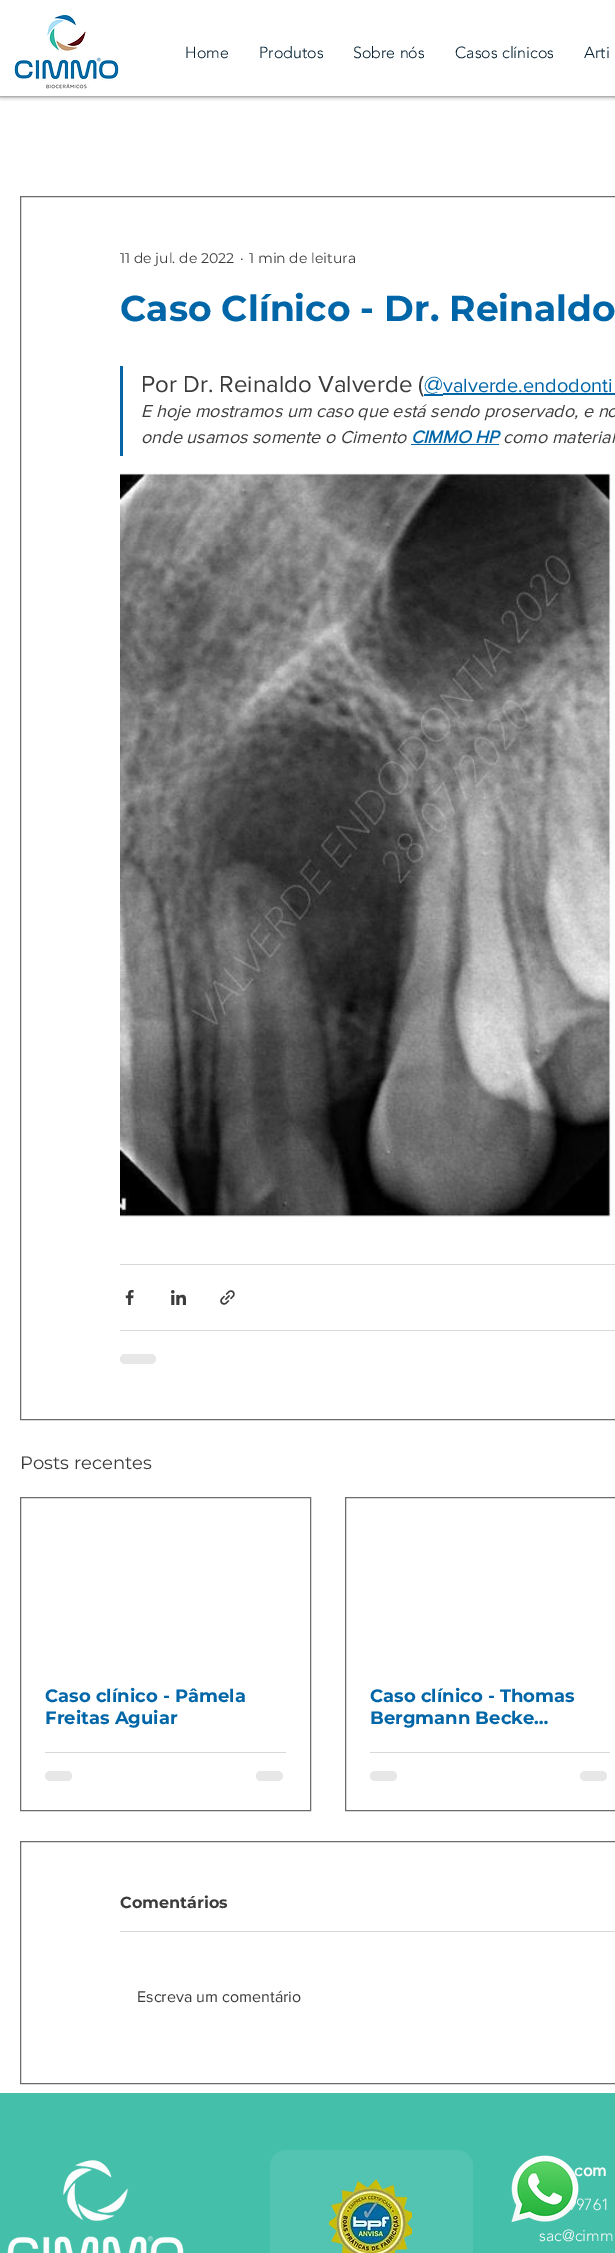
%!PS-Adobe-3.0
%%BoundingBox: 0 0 615 2253
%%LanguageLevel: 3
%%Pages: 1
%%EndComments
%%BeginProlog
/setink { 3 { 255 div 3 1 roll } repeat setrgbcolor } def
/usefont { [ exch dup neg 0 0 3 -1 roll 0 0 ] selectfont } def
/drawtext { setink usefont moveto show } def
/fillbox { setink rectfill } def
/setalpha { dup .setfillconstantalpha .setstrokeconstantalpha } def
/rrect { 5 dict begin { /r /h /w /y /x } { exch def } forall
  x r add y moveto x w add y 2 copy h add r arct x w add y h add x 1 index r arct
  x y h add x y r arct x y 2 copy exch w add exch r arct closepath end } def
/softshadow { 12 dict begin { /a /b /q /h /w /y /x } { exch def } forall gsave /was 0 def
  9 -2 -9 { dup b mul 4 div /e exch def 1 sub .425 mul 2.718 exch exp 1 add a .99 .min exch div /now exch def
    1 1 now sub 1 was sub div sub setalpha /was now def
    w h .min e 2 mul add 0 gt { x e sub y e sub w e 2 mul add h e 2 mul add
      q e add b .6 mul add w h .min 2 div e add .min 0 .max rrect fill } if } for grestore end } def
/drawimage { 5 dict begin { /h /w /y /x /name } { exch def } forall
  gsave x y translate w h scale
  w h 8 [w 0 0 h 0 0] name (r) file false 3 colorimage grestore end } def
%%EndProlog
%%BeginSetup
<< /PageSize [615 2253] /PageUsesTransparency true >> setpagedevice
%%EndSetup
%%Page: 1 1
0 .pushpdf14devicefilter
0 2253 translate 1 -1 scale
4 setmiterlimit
0 0 615 2253 255 255 255 fillbox
gsave
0 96 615 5 rectclip
0 0 0 setink
0 0 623 96 0 2.5 0.7 softshadow
grestore
(assets/img1.rgb) 14 15 105 74 drawimage
(Home) 185 58 /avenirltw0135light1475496-Light 16 6 32 49 drawtext
(Produtos) 259 58 /avenirltw0135light1475496-Light 16 6 32 49 drawtext
(Sobre nós) 353 58 /avenirltw0135light1475496-Light 16 6 32 49 drawtext
(Casos clínicos) 455 58 /avenirltw0135light1475496-Light 16 6 32 49 drawtext
(Arti) 584 58 /avenirltw0135light1475496-Light 16 6 32 49 drawtext
108 108 108 setink
20.5 196.5 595 1223 rectstroke
(11 de jul. de 2022) 120 263 /Montserrat-Regular 14 59 59 59 drawtext
(·) 240 263 /Montserrat-Regular 14 59 59 59 drawtext
(1 min de leitura) 249 263 /Montserrat-Regular 14 59 59 59 drawtext
(Caso Clínico - Dr. Reinaldo) 120 321 /Montserrat-Bold 36 0 102 168 drawtext
120 366 3 90 0 102 168 fillbox
(Por Dr. Reinaldo Valverde \() 141 392 /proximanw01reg-Regular 24 59 59 59 drawtext
(@) 424 392 /proximanw01reg-Regular 24 0 102 168 drawtext
424 394 19 2 0 102 168 fillbox
(valverde.endodonti) 443 392 /proximanw01reg-Regular 20 0 102 168 drawtext
443 393 172 2 0 102 168 fillbox
(E hoje mostramos um caso que está sendo proservado, e no) 141 417 /proximanw01reg-Italic 18 59 59 59 drawtext
(onde usamos somente o Cimento) 141 443 /proximanw01reg-Italic 18 59 59 59 drawtext
(CIMMO HP) 411 443 /proximanw01reg-BoldItalic 18 0 102 168 drawtext
411 444 88 1 0 102 168 fillbox
(como material) 503 443 /proximanw01reg-Italic 18 59 59 59 drawtext
(assets/img2.rgb) 120 473 495 744 drawimage
120 1264 495 1 216 216 216 fillbox
(assets/img3.rgb) 125 1290 9 15 drawimage
(assets/img4.rgb) 171 1290 15 15 drawimage
(assets/img5.rgb) 220 1290 15 15 drawimage
120 1330 495 1 216 216 216 fillbox
231 231 231 setink
120 1354 36 10 5 rrect fill
(Posts recentes) 20 1469 /Montserrat-Regular 18 59 59 59 drawtext
108 108 108 setink
20.5 1497.5 290 313 rectstroke
(Caso clínico - Pâmela) 45 1702 /Montserrat-Bold 18 0 102 168 drawtext
(Freitas Aguiar) 45 1724 /Montserrat-Bold 18 0 102 168 drawtext
45 1752 241 1 216 216 216 fillbox
231 231 231 setink
45 1771 27 10 5 rrect fill
256 1771 27 10 5 rrect fill
108 108 108 setink
345.5 1497.5 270 313 rectstroke
(Caso clínico - Thomas) 370 1702 /Montserrat-Bold 18 0 102 168 drawtext
(Bergmann Becke…) 370 1724 /Montserrat-Bold 18 0 102 168 drawtext
370 1752 240 1 216 216 216 fillbox
231 231 231 setink
370 1771 27 10 5 rrect fill
580 1771 27 10 5 rrect fill
108 108 108 setink
20.5 1841.5 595 242 rectstroke
(Comentários) 120 1908 /Montserrat-Bold 16 59 59 59 drawtext
120 1931 495 1 216 216 216 fillbox
(Escreva um comentário) 137 2002 /proximanw01reg-Regular 16 59 59 59 drawtext
0 2093 615 160 67 191 170 fillbox
(com) 574 2176 /WixMadeforText-Bold 16 250 250 250 drawtext
(9761) 576 2210 /avenirltw0135light1475496-Light 16 250 250 250 drawtext
(assets/img6.rgb) 511 2155 68 68 drawimage
(assets/img7.rgb) 7 2160 177 93 drawimage
82 196 177 setink
270 2150 203 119 16 rrect fill
(assets/img8.rgb) 329 2179 83 74 drawimage
(sac@cimm) 539 2241 /avenirltw0135light1475496-Light 16 250 250 250 drawtext
.poppdf14devicefilter showpage
%%EOF
